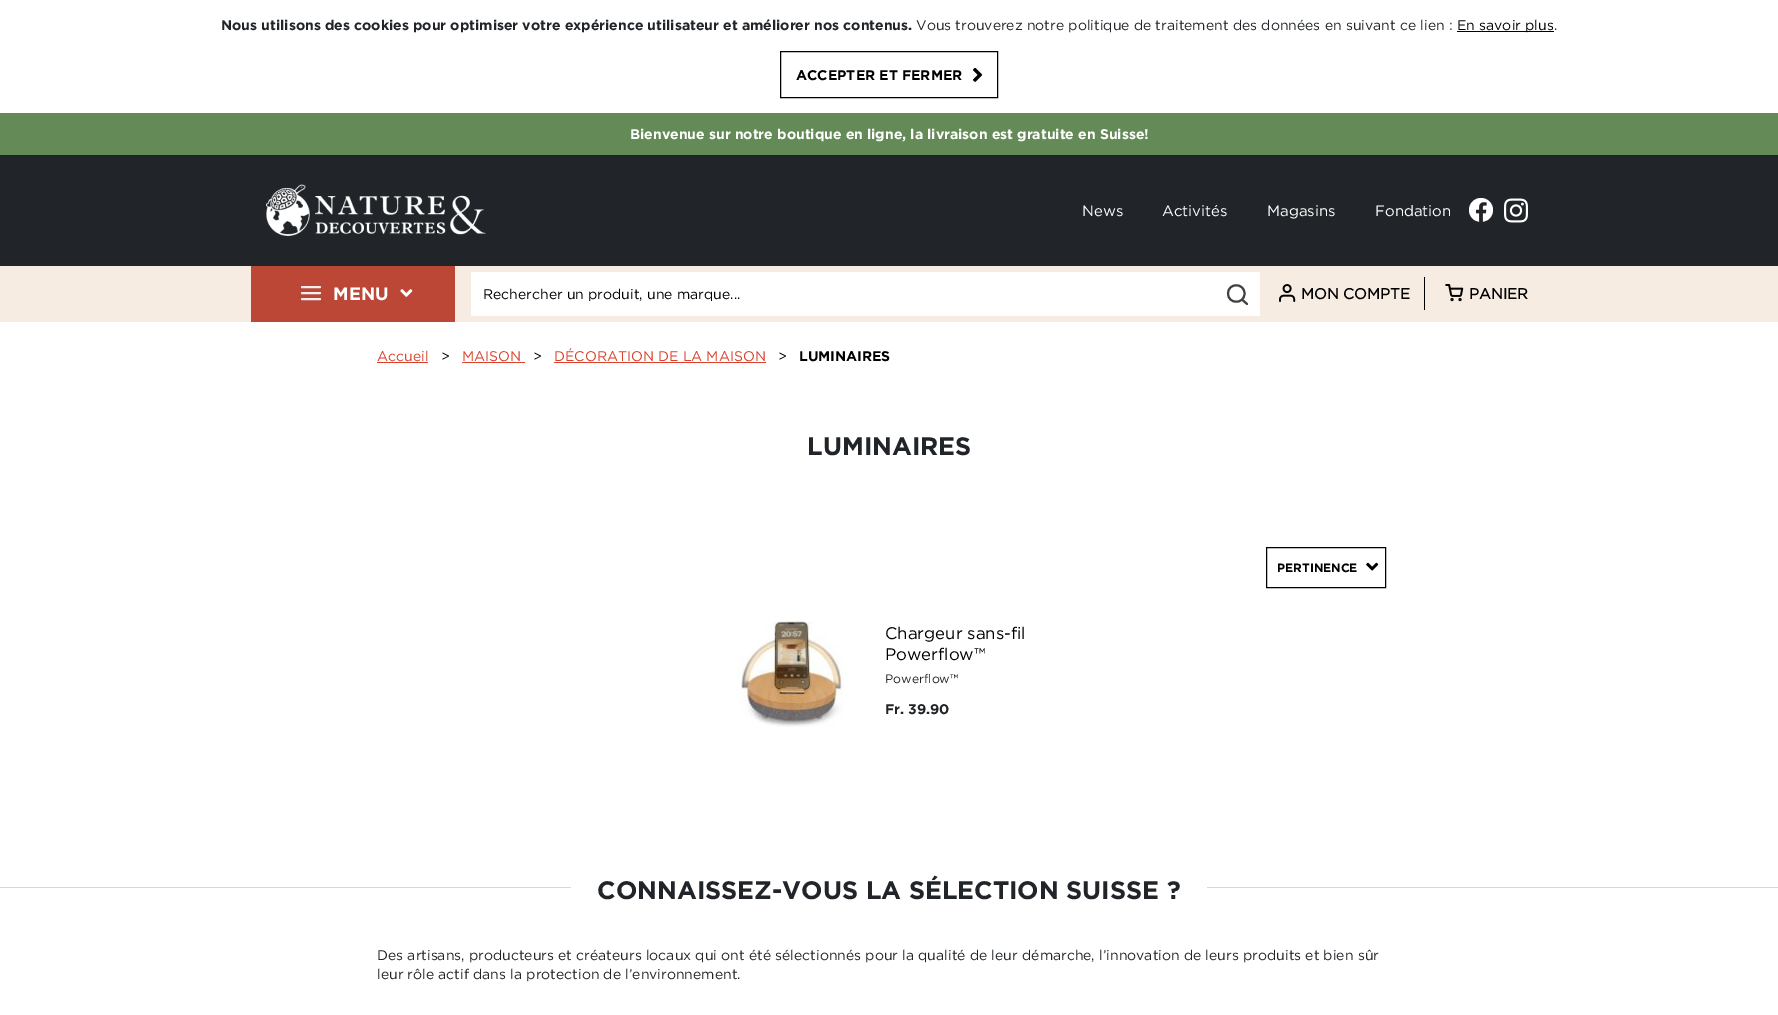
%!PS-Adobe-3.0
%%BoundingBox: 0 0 1778 1015
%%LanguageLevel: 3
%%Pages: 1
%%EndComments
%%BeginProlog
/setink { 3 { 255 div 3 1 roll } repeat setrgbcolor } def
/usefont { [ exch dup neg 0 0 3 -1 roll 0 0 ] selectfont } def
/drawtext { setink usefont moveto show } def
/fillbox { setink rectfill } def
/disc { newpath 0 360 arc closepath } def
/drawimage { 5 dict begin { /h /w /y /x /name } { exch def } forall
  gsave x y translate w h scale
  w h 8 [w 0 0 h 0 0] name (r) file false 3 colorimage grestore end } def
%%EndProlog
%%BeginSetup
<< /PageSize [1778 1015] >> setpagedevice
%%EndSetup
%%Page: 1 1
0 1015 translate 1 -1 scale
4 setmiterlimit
0 0 1778 1015 255 255 255 fillbox
(Nous utilisons des cookies pour optimiser votre expérience utilisateur et améliorer nos contenus.) 221 30 /Gotham-Bold 14 33 37 41 drawtext
(Vous trouverez notre politique de traitement des données en suivant ce lien :) 916 30 /Gotham-Regular 14 33 37 41 drawtext
1457 31 97 1 0 0 0 fillbox
(En savoir plus) 1457 30 /Gotham-Regular 14 0 0 0 drawtext
(.) 1554 30 /Gotham-Regular 14 33 37 41 drawtext
0 0 0 setink
780.5 51.5 217 46 rectstroke
(ACCEPTER ET FERMER) 796 80 /Gotham-Bold 14 0 0 0 drawtext
(assets/img1.rgb) 973 67 10 15 drawimage
0 155 1778 111 33 37 41 fillbox
0 113 1778 42 100 139 87 fillbox
(Bienvenue sur notre boutique en ligne, la livraison est gratuite en Suisse!) 630 139 /Gotham-Bold 14 255 255 255 drawtext
(assets/img2.rgb) 266 184 220 52 drawimage
(News) 1082 216 /Gotham-Regular 15 255 255 255 drawtext
(Activités) 1162 216 /Gotham-Regular 15 255 255 255 drawtext
(Magasins) 1267 216 /Gotham-Regular 15 255 255 255 drawtext
(Fondation) 1375 216 /Gotham-Regular 15 255 255 255 drawtext
1481 210 12 disc fill
(assets/img3.rgb) 1476 202 11 20 drawimage
(assets/img4.rgb) 1504 198 24 25 drawimage
0 266 1778 56 246 236 225 fillbox
251 266 204 56 188 71 54 fillbox
240 240 240 setink
2 setlinewidth
1 setlinecap
1 setlinejoin
302 293 moveto 320 293 lineto 302 287 moveto 320 287 lineto 302 299 moveto 320 299 lineto stroke
(MENU) 333 300 /Gotham-Bold 18 255 255 255 drawtext
(assets/img5.rgb) 400 289 13 8 drawimage
471 272 789 44 255 255 255 fillbox
gsave
483 286 765 15 rectclip
(Rechercher un produit, une marque...) 483 299 /Gotham-Regular 14 0 0 0 drawtext
grestore
65 65 65 setink
1247 304 moveto 1242 299.5 lineto 1244.5 293.5 moveto 1244.5 304.5 1228 304.5 1228 293.5 curveto 1228 282.5 1244.5 282.5 1244.5 293.5 curveto closepath stroke
1424 277 1 33 0 0 0 fillbox
(assets/img6.rgb) 1279 284 17 18 drawimage
(MON COMPTE) 1301 299 /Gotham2-Bold 15 0 0 0 drawtext
(assets/img7.rgb) 1445 284 19 18 drawimage
(PANIER) 1469 299 /Gotham2-Bold 15 0 0 0 drawtext
(Accueil) 377 361 /Gotham-Regular 14 219 66 46 drawtext
377 362 51 1 219 66 46 fillbox
(>) 441 361 /Gotham-Regular 14 0 0 0 drawtext
(MAISON) 462 361 /Gotham-Regular 14 219 66 46 drawtext
462 362 63 1 219 66 46 fillbox
(>) 533 361 /Gotham-Regular 14 0 0 0 drawtext
(DÉCORATION DE LA MAISON) 554 361 /Gotham-Regular 14 219 66 46 drawtext
554 362 212 1 219 66 46 fillbox
(>) 778 361 /Gotham-Regular 14 0 0 0 drawtext
(LUMINAIRES) 799 361 /Gotham-Bold 14 0 0 0 drawtext
(LUMINAIRES) 807 455 /Gotham-Bold 25.2 33 37 41 drawtext
0 0 0 setink
1 setlinewidth
0 setlinecap
0 setlinejoin
1266.5 547.5 119 40 rectstroke
(PERTINENCE) 1277 572 /Gotham-Bold 12 0 0 0 drawtext
(assets/img8.rgb) 1366 562 13 9 drawimage
(assets/img9.rgb) 737 621 107 106 drawimage
(Chargeur sans-fil) 885 639 /Gotham-Regular 16.75 0 0 0 drawtext
(Powerflow™) 885 660 /Gotham-Regular 16.75 0 0 0 drawtext
(Powerflow™) 885 683 /Gotham-Regular 12.25 33 37 41 drawtext
(Fr. 39.90) 885 714 /Gotham-Bold 14 33 37 41 drawtext
0 887 571 1 216 216 216 fillbox
(CONNAISSEZ-VOUS LA SÉLECTION SUISSE ?) 597 899 /Gotham-Bold 25.2 33 37 41 drawtext
1207 887 571 1 216 216 216 fillbox
(Des artisans, producteurs et créateurs locaux qui ont été sélectionnés pour la qualité de leur démarche, l’innovation de leurs produits et bien sûr) 377 960 /Gotham-Regular 14 33 37 41 drawtext
(leur rôle actif dans la protection de l’environnement.) 377 979 /Gotham-Regular 14 33 37 41 drawtext
showpage
%%EOF
